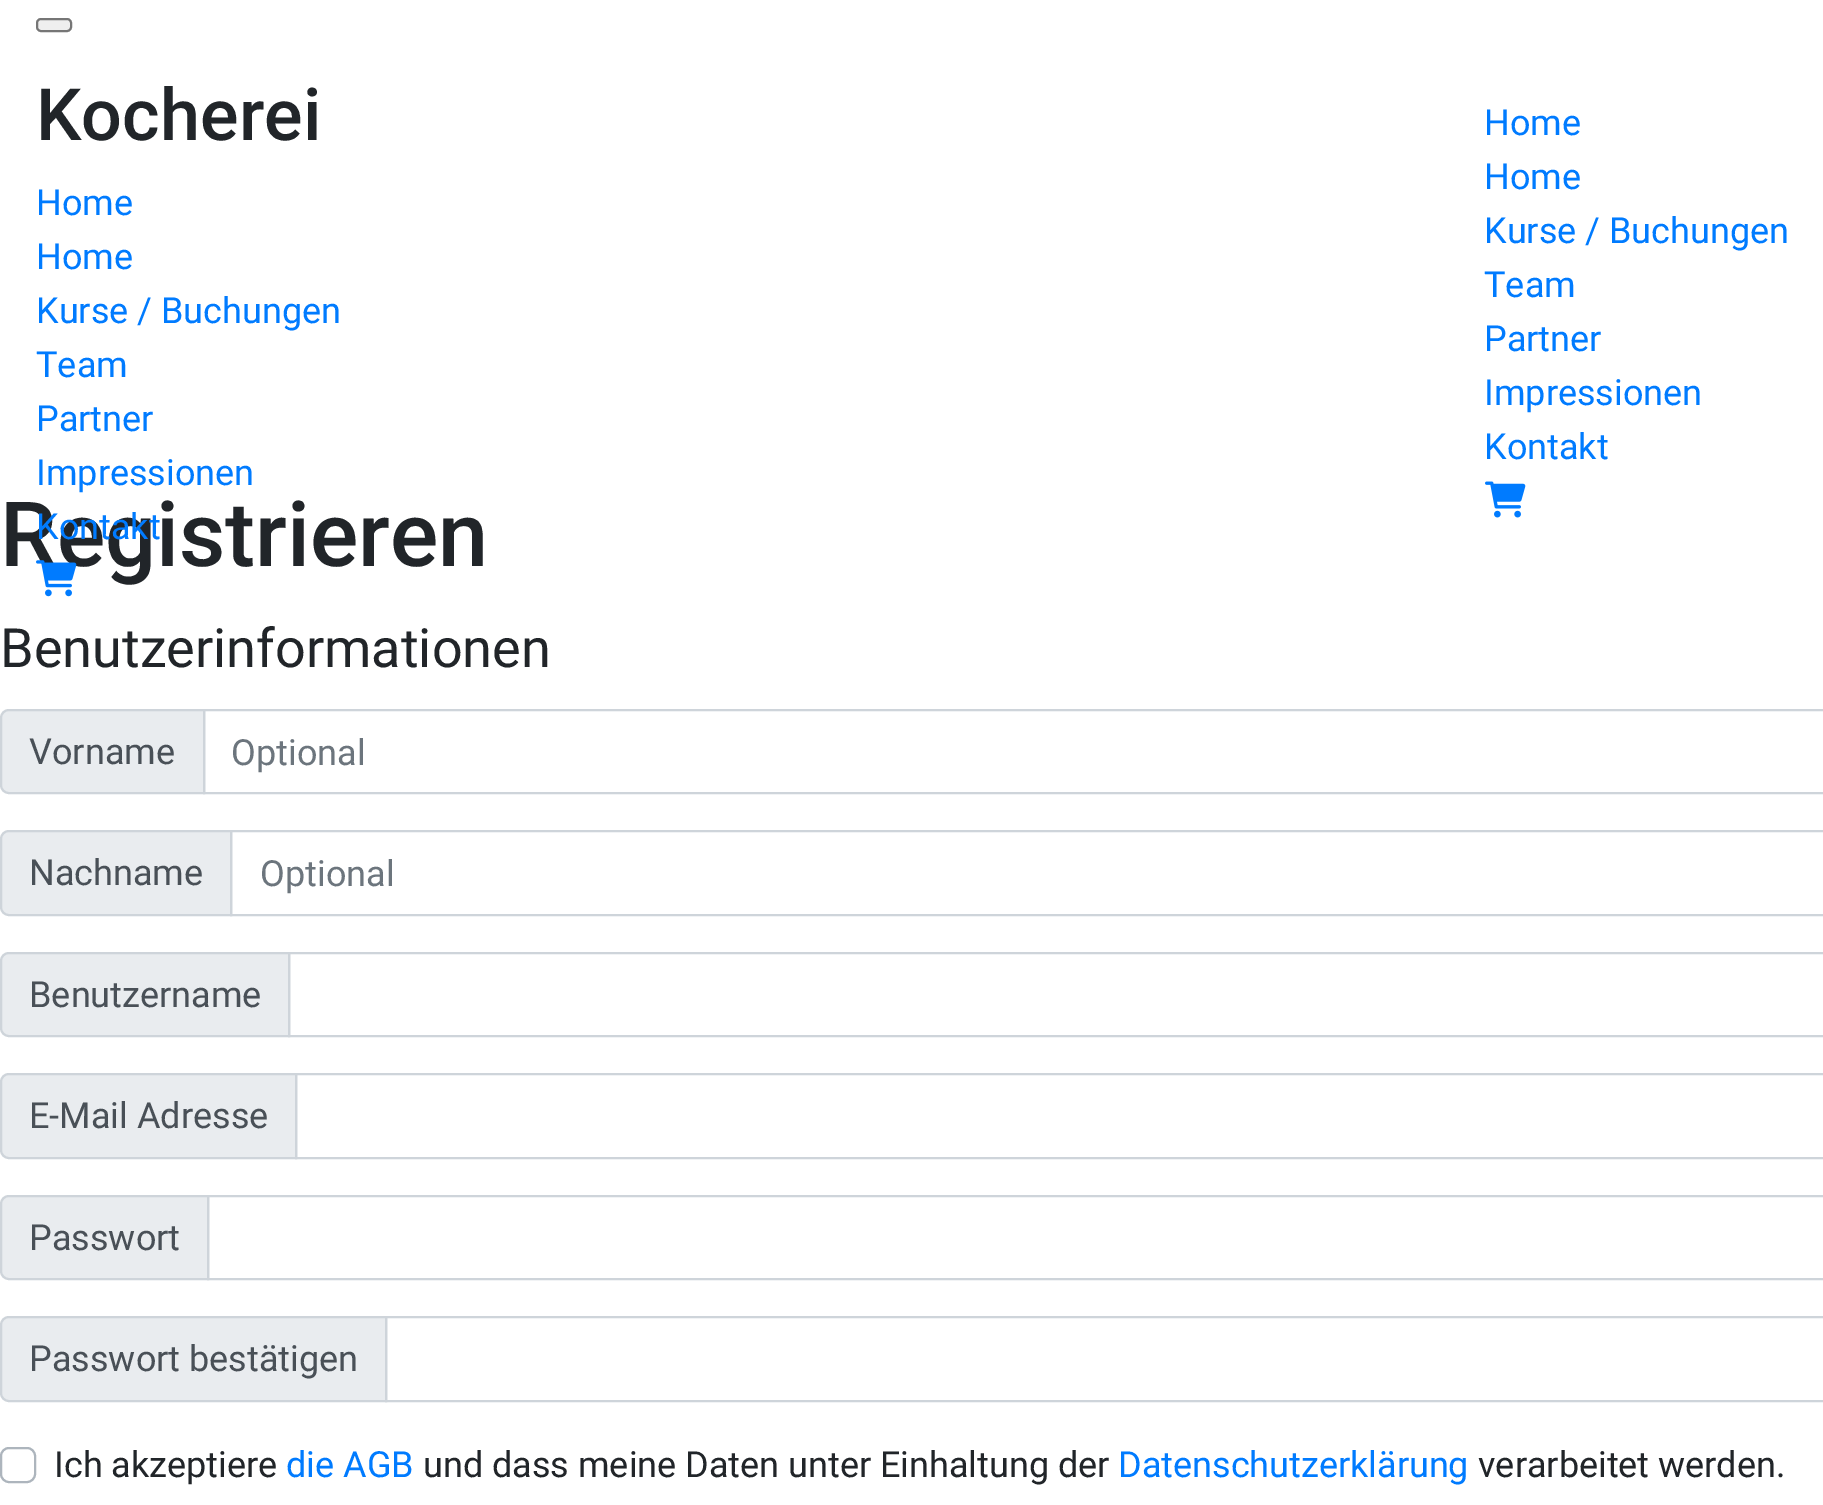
%!PS-Adobe-3.0
%%BoundingBox: 0 0 1823 1505
%%LanguageLevel: 3
%%Pages: 1
%%EndComments
%%BeginProlog
/setink { 3 { 255 div 3 1 roll } repeat setrgbcolor } def
/usefont { [ exch dup neg 0 0 3 -1 roll 0 0 ] selectfont } def
/drawtext { setink usefont moveto show } def
/fillbox { setink rectfill } def
/rrect { 5 dict begin { /r /h /w /y /x } { exch def } forall
  x r add y moveto x w add y 2 copy h add r arct x w add y h add x 1 index r arct
  x y h add x y r arct x y 2 copy exch w add exch r arct closepath end } def
/drawimage { 5 dict begin { /h /w /y /x /name } { exch def } forall
  gsave x y translate w h scale
  w h 8 [w 0 0 h 0 0] name (r) file false 3 colorimage grestore end } def
%%EndProlog
%%BeginSetup
<< /PageSize [1823 1505] >> setpagedevice
%%EndSetup
%%Page: 1 1
0 1505 translate 1 -1 scale
4 setmiterlimit
0 0 1823 1505 255 255 255 fillbox
239 239 239 setink
37 19 34 12 4 rrect gsave fill grestore
118 118 118 setink
2 setlinewidth
stroke
(Kocherei) 36 140 /Roboto-Medium 72 33 37 41 drawtext
(Home) 36 215 /Roboto-Regular 36 0 123 255 drawtext
(Home) 36 269 /Roboto-Regular 36 0 123 255 drawtext
(Kurse / Buchungen) 36 323 /Roboto-Regular 36 0 123 255 drawtext
(Team) 36 377 /Roboto-Regular 36 0 123 255 drawtext
(Partner) 36 431 /Roboto-Regular 36 0 123 255 drawtext
(Impressionen) 36 485 /Roboto-Regular 36 0 123 255 drawtext
(Registrieren) 0 566 /Roboto-Medium 90 33 37 41 drawtext
(Kontakt) 36 539 /Roboto-Regular 36 0 123 255 drawtext
(assets/img1.rgb) 36 560 41 37 drawimage
(Home) 1484 135 /Roboto-Regular 36 0 123 255 drawtext
(Home) 1484 189 /Roboto-Regular 36 0 123 255 drawtext
(Kurse / Buchungen) 1484 243 /Roboto-Regular 36 0 123 255 drawtext
(Team) 1484 297 /Roboto-Regular 36 0 123 255 drawtext
(Partner) 1484 351 /Roboto-Regular 36 0 123 255 drawtext
(Impressionen) 1484 405 /Roboto-Regular 36 0 123 255 drawtext
(Kontakt) 1484 459 /Roboto-Regular 36 0 123 255 drawtext
(assets/img2.rgb) 1485 481 41 37 drawimage
(Benutzerinformationen) 0 667 /Roboto-Regular 54 33 37 41 drawtext
233 236 239 setink
9 710 moveto 204 710 lineto 204 793 lineto 9 793 lineto 4.5 793 1 789.5 1 785 curveto 1 718 lineto 1 713.5 4.5 710 9 710 curveto closepath gsave fill grestore
206 212 218 setink
stroke
(Vorname) 29 764 /Roboto-Regular 36 73 80 87 drawtext
206 212 218 setink
204 710 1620 83 rectstroke
(Optional) 231 765 /Roboto-Regular 36 108 117 125 drawtext
233 236 239 setink
9 831 moveto 231 831 lineto 231 915 lineto 9 915 lineto 4.5 915 1 911.5 1 907 curveto 1 839 lineto 1 834.5 4.5 831 9 831 curveto closepath gsave fill grestore
206 212 218 setink
stroke
(Nachname) 29 885 /Roboto-Regular 36 73 80 87 drawtext
206 212 218 setink
231 831 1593 84 rectstroke
(Optional) 260 886 /Roboto-Regular 36 108 117 125 drawtext
233 236 239 setink
9 953 moveto 289 953 lineto 289 1036 lineto 9 1036 lineto 4.5 1036 1 1032.5 1 1028 curveto 1 961 lineto 1 956.5 4.5 953 9 953 curveto closepath gsave fill grestore
206 212 218 setink
stroke
(Benutzername) 29 1007 /Roboto-Regular 36 73 80 87 drawtext
206 212 218 setink
289 953 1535 83 rectstroke
233 236 239 setink
9 1074 moveto 296 1074 lineto 296 1158 lineto 9 1158 lineto 4.5 1158 1 1154.5 1 1150 curveto 1 1082 lineto 1 1077.5 4.5 1074 9 1074 curveto closepath gsave fill grestore
206 212 218 setink
stroke
(E-Mail Adresse) 29 1128 /Roboto-Regular 36 73 80 87 drawtext
206 212 218 setink
296 1074 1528 84 rectstroke
233 236 239 setink
9 1196 moveto 208 1196 lineto 208 1279 lineto 9 1279 lineto 4.5 1279 1 1275.5 1 1271 curveto 1 1204 lineto 1 1199.5 4.5 1196 9 1196 curveto closepath gsave fill grestore
206 212 218 setink
stroke
(Passwort) 29 1250 /Roboto-Regular 36 73 80 87 drawtext
206 212 218 setink
208 1196 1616 83 rectstroke
233 236 239 setink
9 1317 moveto 386 1317 lineto 386 1401 lineto 9 1401 lineto 4.5 1401 1 1397.5 1 1393 curveto 1 1325 lineto 1 1320.5 4.5 1317 9 1317 curveto closepath gsave fill grestore
206 212 218 setink
stroke
(Passwort bestätigen) 29 1371 /Roboto-Regular 36 73 80 87 drawtext
206 212 218 setink
386 1317 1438 84 rectstroke
173 181 189 setink
1 1448 34 34 8 rrect stroke
(Ich akzeptiere) 54 1477 /Roboto-Regular 36 33 37 41 drawtext
(die AGB) 286 1477 /Roboto-Regular 36 0 123 255 drawtext
(und dass meine Daten unter Einhaltung der) 423 1477 /Roboto-Regular 36 33 37 41 drawtext
(Datenschutzerklärung) 1118 1477 /Roboto-Regular 36 0 123 255 drawtext
(verarbeitet werden.) 1478 1477 /Roboto-Regular 36 33 37 41 drawtext
showpage
%%EOF
